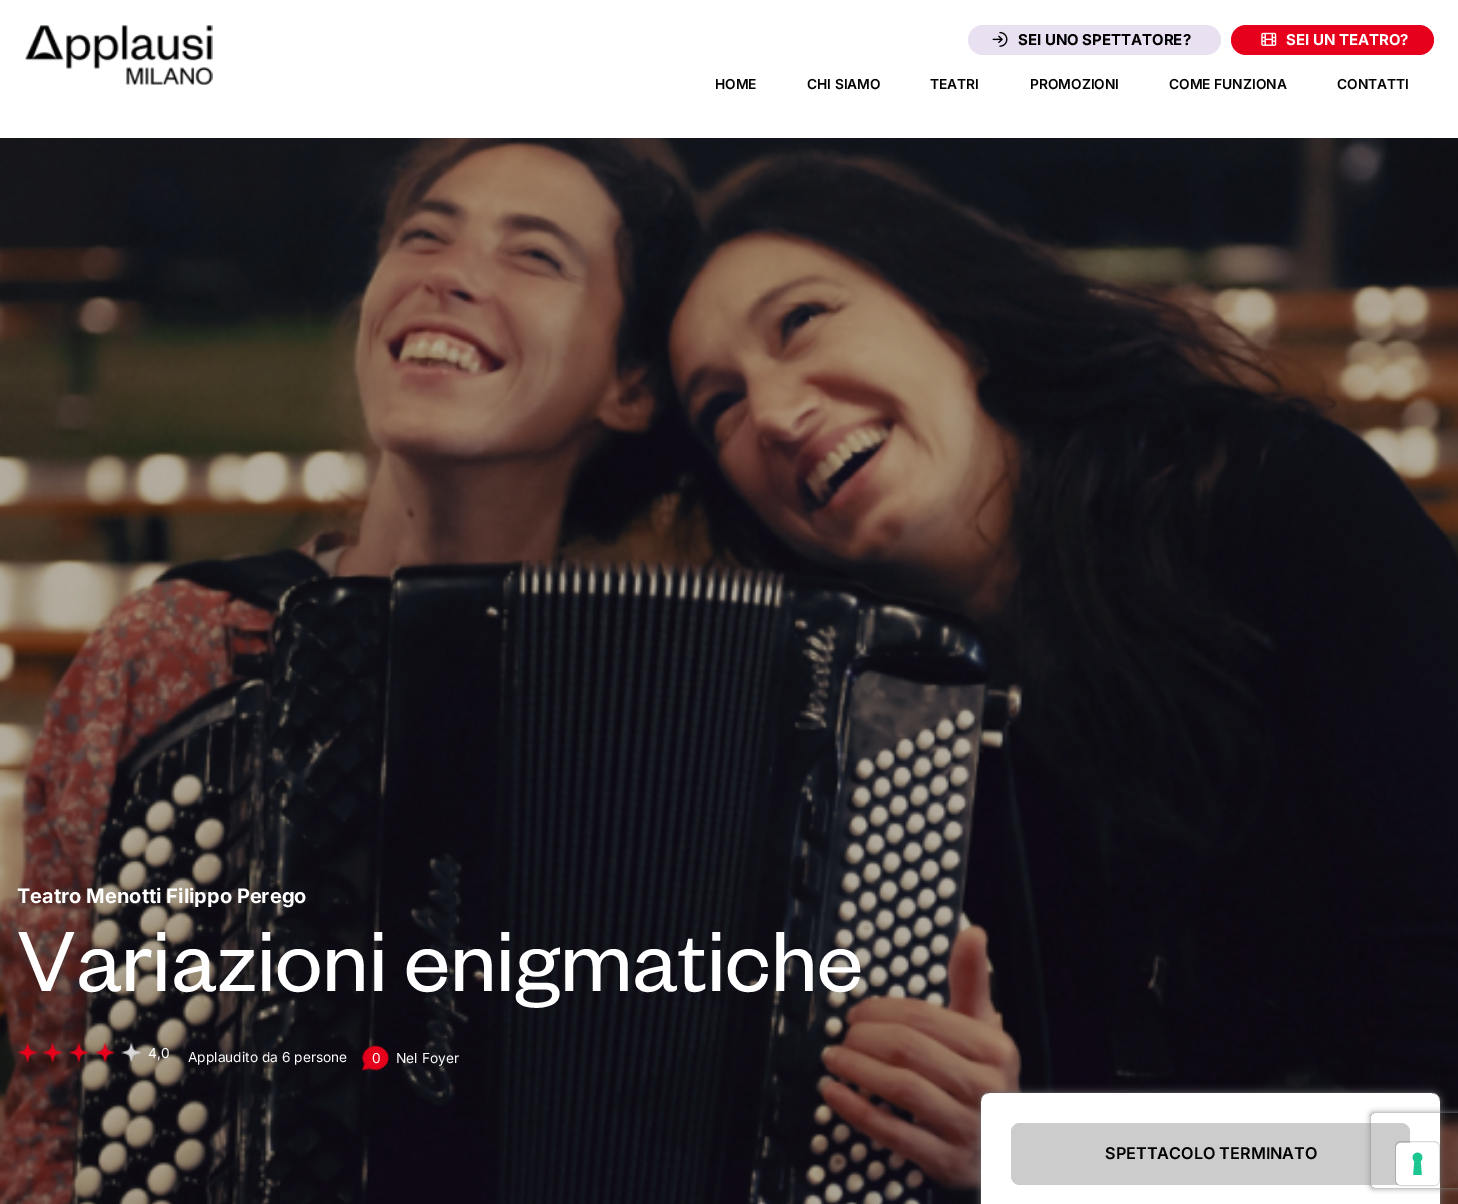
%!PS-Adobe-3.0
%%BoundingBox: 0 0 1458 1204
%%LanguageLevel: 3
%%Pages: 1
%%EndComments
%%BeginProlog
/setink { 3 { 255 div 3 1 roll } repeat setrgbcolor } def
/usefont { [ exch dup neg 0 0 3 -1 roll 0 0 ] selectfont } def
/drawtext { setink usefont moveto show } def
/fillbox { setink rectfill } def
/setalpha { dup .setfillconstantalpha .setstrokeconstantalpha } def
/rrect { 5 dict begin { /r /h /w /y /x } { exch def } forall
  x r add y moveto x w add y 2 copy h add r arct x w add y h add x 1 index r arct
  x y h add x y r arct x y 2 copy exch w add exch r arct closepath end } def
/softshadow { 12 dict begin { /a /b /q /h /w /y /x } { exch def } forall gsave /was 0 def
  9 -2 -9 { dup b mul 4 div /e exch def 1 sub .425 mul 2.718 exch exp 1 add a .99 .min exch div /now exch def
    1 1 now sub 1 was sub div sub setalpha /was now def
    w h .min e 2 mul add 0 gt { x e sub y e sub w e 2 mul add h e 2 mul add
      q e add b .6 mul add w h .min 2 div e add .min 0 .max rrect fill } if } for grestore end } def
/drawimage { 5 dict begin { /h /w /y /x /name } { exch def } forall
  gsave x y translate w h scale
  w h 8 [w 0 0 h 0 0] name (r) file false 3 colorimage grestore end } def
%%EndProlog
%%BeginSetup
<< /PageSize [1458 1204] /PageUsesTransparency true >> setpagedevice
%%EndSetup
%%Page: 1 1
0 .pushpdf14devicefilter
0 1204 translate 1 -1 scale
4 setmiterlimit
0 0 1458 1204 255 255 255 fillbox
(assets/img1.rgb) 25 25 188 60 drawimage
233 225 241 setink
968 25 253 30 15 rrect fill
(assets/img2.rgb) 992 31 16 16 drawimage
(SEI UNO SPETTATORE?) 1018 45 /Inter-Bold 15 0 0 0 drawtext
230 0 28 setink
1231 25 203 30 15 rrect fill
(assets/img3.rgb) 1261 32 16 14 drawimage
(SEI UN TEATRO?) 1286 45 /Inter-Bold 15 255 255 255 drawtext
(HOME) 715 89 /Inter-SemiBold 13.75 0 0 0 drawtext
(CHI SIAMO) 807 89 /Inter-SemiBold 13.75 0 0 0 drawtext
(TEATRI) 930 89 /Inter-SemiBold 13.75 0 0 0 drawtext
(PROMOZIONI) 1030 89 /Inter-SemiBold 13.75 0 0 0 drawtext
(COME FUNZIONA) 1169 89 /Inter-SemiBold 13.75 0 0 0 drawtext
(CONTATTI) 1337 89 /Inter-SemiBold 13.75 0 0 0 drawtext
(assets/img4.rgb) 0 138 1458 1066 drawimage
(Teatro Menotti Filippo Perego) 17 903 /Inter-Bold 20 255 255 255 drawtext
(Variazioni enigmatiche) 17 991 /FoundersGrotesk-Regular 93.75 255 255 255 drawtext
(assets/img5.rgb) 17 1042 21 21 drawimage
(assets/img6.rgb) 42 1042 21 21 drawimage
(assets/img7.rgb) 68 1042 21 21 drawimage
(assets/img8.rgb) 95 1042 20 21 drawimage
(assets/img9.rgb) 121 1042 20 21 drawimage
(4,0) 148 1058 /Inter-Regular 13.75 255 255 255 drawtext
(Applaudito da 6 persone) 188 1062 /Inter-Regular 13.75 255 255 255 drawtext
(assets/img10.rgb) 362 1045 28 26 drawimage
(0) 372 1063 /Inter-Regular 13.75 255 255 255 drawtext
(Nel Foyer) 396 1063 /Inter-Regular 13.75 255 255 255 drawtext
981 1093 459 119 8 rrect fill
gsave
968 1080 moveto 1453 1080 lineto 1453 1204 lineto 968 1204 lineto closepath 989 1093 moveto 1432 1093 lineto 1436.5 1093 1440 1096.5 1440 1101 curveto 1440 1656 lineto 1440 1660.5 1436.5 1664 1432 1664 curveto 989 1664 lineto 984.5 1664 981 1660.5 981 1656 curveto 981 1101 lineto 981 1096.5 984.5 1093 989 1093 curveto closepath eoclip newpath
112 112 112 setink
981 1093 459 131 8 4 1 softshadow
grestore
204 204 204 setink
1011 1123 399 62 9 rrect fill
(SPETTACOLO TERMINATO) 1105 1159 /Inter-SemiBold 16.25 0 0 0 drawtext
gsave
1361 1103 moveto 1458 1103 lineto 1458 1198 lineto 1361 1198 lineto closepath 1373.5 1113 moveto 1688.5 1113 lineto 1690 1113 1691 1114 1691 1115.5 curveto 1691 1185.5 lineto 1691 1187 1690 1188 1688.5 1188 curveto 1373.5 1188 lineto 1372 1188 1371 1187 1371 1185.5 curveto 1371 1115.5 lineto 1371 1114 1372 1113 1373.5 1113 curveto closepath eoclip newpath
128 128 128 setink
1371 1113 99 75 2.5 3 1 softshadow
grestore
0.15 setalpha
1395.5 1141.5 44 44 5.5 rrect stroke
1 setalpha
255 255 255 setink
1396 1143 43 42 5 rrect fill
(assets/img11.rgb) 1412 1152 11 23 drawimage
.poppdf14devicefilter showpage
%%EOF
